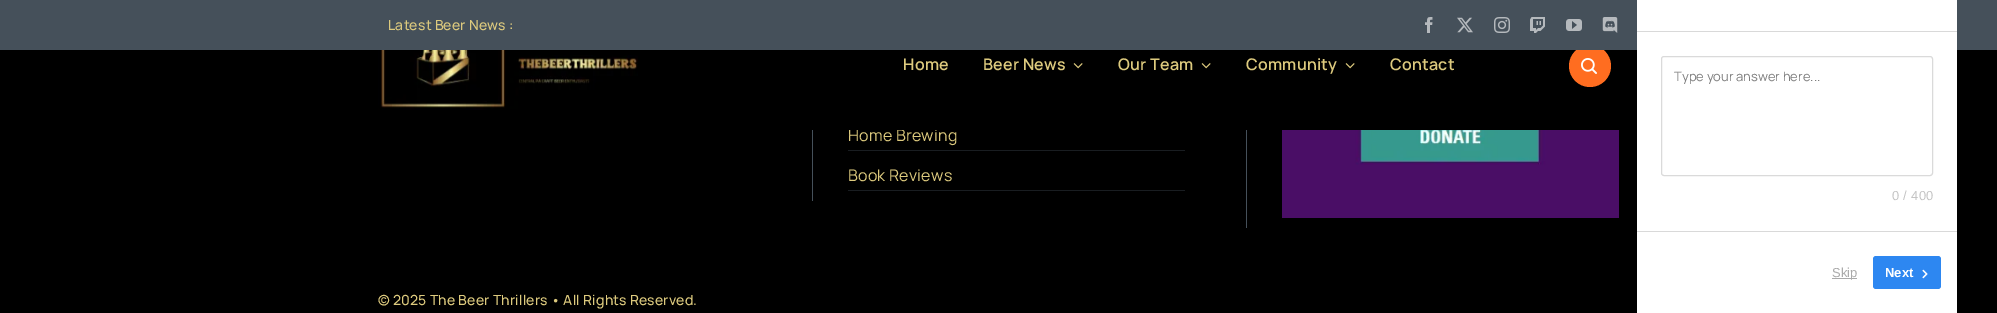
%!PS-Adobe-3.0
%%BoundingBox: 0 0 1997 313
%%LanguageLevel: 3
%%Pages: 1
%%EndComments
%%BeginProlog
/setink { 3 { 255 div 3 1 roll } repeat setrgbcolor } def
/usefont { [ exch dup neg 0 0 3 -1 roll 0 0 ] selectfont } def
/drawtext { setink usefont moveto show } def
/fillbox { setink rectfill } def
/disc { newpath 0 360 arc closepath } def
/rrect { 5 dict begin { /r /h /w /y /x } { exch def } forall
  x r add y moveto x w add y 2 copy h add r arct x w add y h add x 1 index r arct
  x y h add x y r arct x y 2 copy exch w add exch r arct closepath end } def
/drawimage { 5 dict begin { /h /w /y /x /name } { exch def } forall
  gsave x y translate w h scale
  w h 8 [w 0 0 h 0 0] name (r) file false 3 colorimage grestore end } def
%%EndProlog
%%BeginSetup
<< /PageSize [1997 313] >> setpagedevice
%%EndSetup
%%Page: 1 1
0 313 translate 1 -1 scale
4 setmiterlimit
0 0 1997 313 0 0 0 fillbox
255 109 32 setink
1590 66 21 disc fill
0 0 1997 50 69 80 90 fillbox
/Manrope-Medium 14 usefont
221 202 126 setink
388 30 moveto 0.2 0 (Latest Beer News :) ashow
(assets/img1.rgb) 1425 17 8 16 drawimage
(assets/img2.rgb) 1457 17 16 16 drawimage
(assets/img3.rgb) 1494 17 16 16 drawimage
(assets/img4.rgb) 1530 17 15 16 drawimage
(assets/img5.rgb) 1566 19 16 12 drawimage
(assets/img6.rgb) 1602 17 16 16 drawimage
/Manrope-Regular 16 usefont
848 141 moveto 0.25 0 (Home Brewing) ashow
849 129 88 1 0 0 0 fillbox
(assets/img7.rgb) 378 50 260 60 drawimage
/Manrope-SemiBold 16 usefont
221 202 126 setink
903 70 moveto 0.25 0 (Home) ashow
983 70 moveto 0.25 0 (Beer News) ashow
(assets/img8.rgb) 1073 63 10 6 drawimage
1118 70 moveto 0.25 0 (Our Team) ashow
(assets/img8.rgb) 1201 63 10 6 drawimage
1246 70 moveto 0.25 0 (Community) ashow
(assets/img8.rgb) 1345 63 10 6 drawimage
1390 70 moveto 0.25 0 (Contact) ashow
(assets/img9.rgb) 1581 58 16 16 drawimage
812 130 1 71 69 80 90 fillbox
848 150 337 1 25 29 33 fillbox
/Manrope-Regular 16 usefont
221 202 126 setink
848 181 moveto 0.25 0 (Book Reviews) ashow
848 190 337 1 25 29 33 fillbox
1246 130 1 98 69 80 90 fillbox
(assets/img10.rgb) 1282 130 337 88 drawimage
/Manrope-Medium 14 usefont
221 202 126 setink
378 305 moveto 0.2 0 (© 2025 The Beer Thrillers • All Rights Reserved.) ashow
1637 0 320 313 255 255 255 fillbox
1637 31 320 1 217 217 217 fillbox
1637 231 320 1 217 217 217 fillbox
218 218 218 setink
1661.5 56.5 271 119 2.5 rrect stroke
(Type your answer here...) 1674 81 /Manrope-Regular 13 126 126 126 drawtext
/LiberationSans-Regular 13 usefont
196 196 196 setink
1892 200 moveto 0.25 0 (0 / 400) ashow
1832 278 25 1 170 170 170 fillbox
(Skip) 1832 277 /LiberationSans-Regular 13 170 170 170 drawtext
45 135 241 setink
1873 256 68 33 3 rrect fill
(Next) 1885 277 /LiberationSans-Bold 13 255 255 255 drawtext
(assets/img11.rgb) 1922 269 6 10 drawimage
showpage
%%EOF
